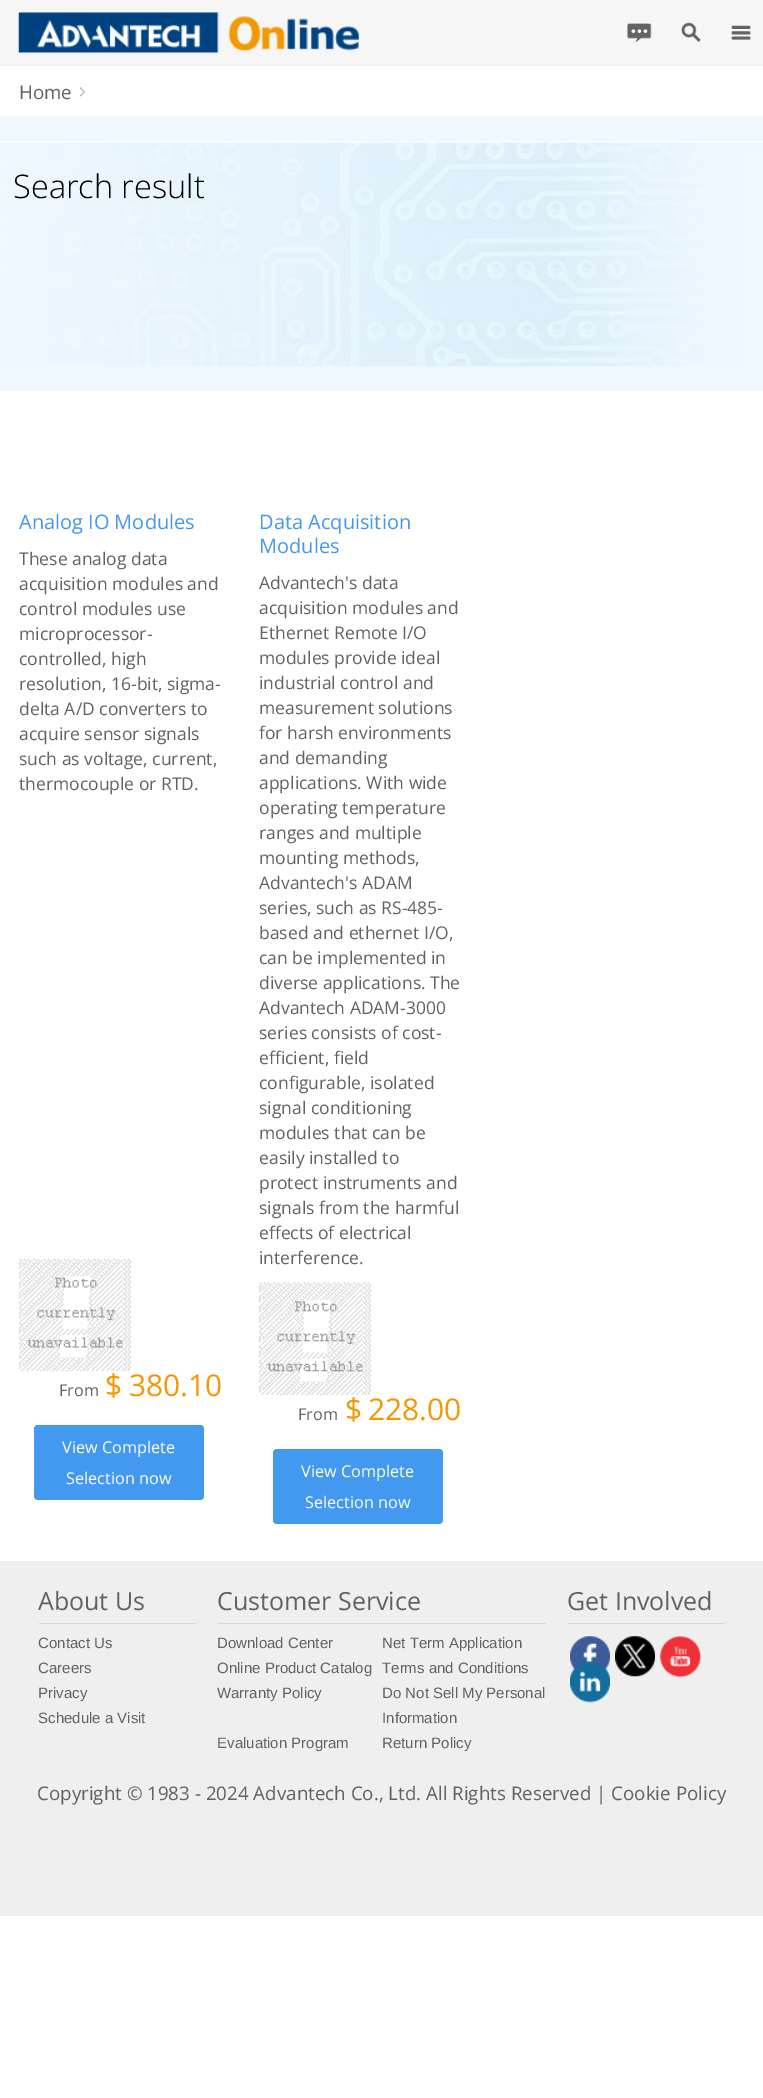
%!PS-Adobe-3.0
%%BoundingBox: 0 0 763 2098
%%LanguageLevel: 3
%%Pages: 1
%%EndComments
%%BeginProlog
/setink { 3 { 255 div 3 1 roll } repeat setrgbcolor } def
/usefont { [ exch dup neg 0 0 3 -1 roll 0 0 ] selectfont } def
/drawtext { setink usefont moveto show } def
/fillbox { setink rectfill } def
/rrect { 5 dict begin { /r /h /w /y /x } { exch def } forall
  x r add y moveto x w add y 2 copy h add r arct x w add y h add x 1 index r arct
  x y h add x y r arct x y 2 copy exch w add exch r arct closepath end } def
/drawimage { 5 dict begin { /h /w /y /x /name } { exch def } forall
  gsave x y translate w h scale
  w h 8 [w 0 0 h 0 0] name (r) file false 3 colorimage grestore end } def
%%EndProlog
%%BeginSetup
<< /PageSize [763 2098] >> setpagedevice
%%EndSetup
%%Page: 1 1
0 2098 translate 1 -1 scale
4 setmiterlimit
0 0 763 2098 255 255 255 fillbox
0 0 763 65 246 246 246 fillbox
0 65 763 1 239 239 239 fillbox
(assets/img1.rgb) 18 12 341 41 drawimage
(assets/img2.rgb) 627 23 25 20 drawimage
(assets/img3.rgb) 681 22 20 20 drawimage
(assets/img4.rgb) 731 25 20 15 drawimage
(assets/img5.rgb) 80 87 5 10 drawimage
(Home) 19 99 /OpenSans-Regular 18.75 99 97 97 drawtext
0 116 763 275 239 248 254 fillbox
(assets/img6.rgb) 0 141 763 226 drawimage
(Search result) 13 198 /OpenSans-Light 32.5 0 0 0 drawtext
(Analog IO Modules) 19 529 /OpenSans-Regular 20 67 152 239 drawtext
(These analog data) 19 565 /OpenSans-Regular 17.5 99 97 97 drawtext
(acquisition modules and) 19 590 /OpenSans-Regular 17.5 99 97 97 drawtext
(control modules use) 19 615 /OpenSans-Regular 17.5 99 97 97 drawtext
(microprocessor-) 19 640 /OpenSans-Regular 17.5 99 97 97 drawtext
(controlled, high) 19 665 /OpenSans-Regular 17.5 99 97 97 drawtext
(resolution, 16-bit, sigma-) 19 690 /OpenSans-Regular 17.5 99 97 97 drawtext
(delta A/D converters to) 19 715 /OpenSans-Regular 17.5 99 97 97 drawtext
(acquire sensor signals) 19 740 /OpenSans-Regular 17.5 99 97 97 drawtext
(such as voltage, current,) 19 765 /OpenSans-Regular 17.5 99 97 97 drawtext
(thermocouple or RTD.) 19 790 /OpenSans-Regular 17.5 99 97 97 drawtext
(assets/img7.rgb) 19 1258 113 114 drawimage
(From) 59 1396 /OpenSans-Regular 16.25 99 97 97 drawtext
($) 105 1396 /OpenSans-Regular 30 243 152 0 drawtext
(380.10) 129 1396 /OpenSans-Regular 30 243 152 0 drawtext
67 152 239 setink
34 1425 170 75 4 rrect fill
(View Complete) 62 1453 /OpenSans-Regular 16.25 255 255 255 drawtext
(Selection now) 66 1484 /OpenSans-Regular 16.25 255 255 255 drawtext
(Data Acquisition) 259 529 /OpenSans-Regular 20 67 152 239 drawtext
(Modules) 259 553 /OpenSans-Regular 20 67 152 239 drawtext
(Advantech's data) 259 589 /OpenSans-Regular 17.5 99 97 97 drawtext
(acquisition modules and) 259 614 /OpenSans-Regular 17.5 99 97 97 drawtext
(Ethernet Remote I/O) 259 639 /OpenSans-Regular 17.5 99 97 97 drawtext
(modules provide ideal) 259 664 /OpenSans-Regular 17.5 99 97 97 drawtext
(industrial control and) 259 689 /OpenSans-Regular 17.5 99 97 97 drawtext
(measurement solutions) 259 714 /OpenSans-Regular 17.5 99 97 97 drawtext
(for harsh environments) 259 739 /OpenSans-Regular 17.5 99 97 97 drawtext
(and demanding) 259 764 /OpenSans-Regular 17.5 99 97 97 drawtext
(applications. With wide) 259 789 /OpenSans-Regular 17.5 99 97 97 drawtext
(operating temperature) 259 814 /OpenSans-Regular 17.5 99 97 97 drawtext
(ranges and multiple) 259 839 /OpenSans-Regular 17.5 99 97 97 drawtext
(mounting methods,) 259 864 /OpenSans-Regular 17.5 99 97 97 drawtext
(Advantech's ADAM) 259 889 /OpenSans-Regular 17.5 99 97 97 drawtext
(series, such as RS-485-) 259 914 /OpenSans-Regular 17.5 99 97 97 drawtext
(based and ethernet I/O,) 259 939 /OpenSans-Regular 17.5 99 97 97 drawtext
(can be implemented in) 259 964 /OpenSans-Regular 17.5 99 97 97 drawtext
(diverse applications. The) 259 989 /OpenSans-Regular 17.5 99 97 97 drawtext
(Advantech ADAM-3000) 259 1014 /OpenSans-Regular 17.5 99 97 97 drawtext
(series consists of cost-) 259 1039 /OpenSans-Regular 17.5 99 97 97 drawtext
(efficient, field) 259 1064 /OpenSans-Regular 17.5 99 97 97 drawtext
(configurable, isolated) 259 1089 /OpenSans-Regular 17.5 99 97 97 drawtext
(signal conditioning) 259 1114 /OpenSans-Regular 17.5 99 97 97 drawtext
(modules that can be) 259 1139 /OpenSans-Regular 17.5 99 97 97 drawtext
(easily installed to) 259 1164 /OpenSans-Regular 17.5 99 97 97 drawtext
(protect instruments and) 259 1189 /OpenSans-Regular 17.5 99 97 97 drawtext
(signals from the harmful) 259 1214 /OpenSans-Regular 17.5 99 97 97 drawtext
(effects of electrical) 259 1239 /OpenSans-Regular 17.5 99 97 97 drawtext
(interference.) 259 1264 /OpenSans-Regular 17.5 99 97 97 drawtext
(assets/img8.rgb) 258 1282 114 113 drawimage
(From) 298 1420 /OpenSans-Regular 16.25 99 97 97 drawtext
($) 345 1420 /OpenSans-Regular 30 243 152 0 drawtext
(228.00) 368 1420 /OpenSans-Regular 30 243 152 0 drawtext
67 152 239 setink
273 1449 170 75 4 rrect fill
(View Complete) 301 1477 /OpenSans-Regular 16.25 255 255 255 drawtext
(Selection now) 305 1508 /OpenSans-Regular 16.25 255 255 255 drawtext
0 1561 763 355 239 239 239 fillbox
39 1623 157 1 216 216 216 fillbox
(About Us) 38 1610 /OpenSans-Regular 25 99 97 97 drawtext
(Contact Us) 38 1648 /LiberationSans-Regular 15 99 97 97 drawtext
(Careers) 38 1673 /LiberationSans-Regular 15 99 97 97 drawtext
(Privacy) 38 1698 /LiberationSans-Regular 15 99 97 97 drawtext
(Schedule a Visit) 38 1723 /LiberationSans-Regular 15 99 97 97 drawtext
218 1623 328 1 216 216 216 fillbox
(Customer Service) 217 1610 /OpenSans-Regular 25 99 97 97 drawtext
(Download Center) 217 1648 /LiberationSans-Regular 15 99 97 97 drawtext
(Net Term Application) 382 1648 /LiberationSans-Regular 15 99 97 97 drawtext
(Online Product Catalog) 217 1673 /LiberationSans-Regular 15 99 97 97 drawtext
(Terms and Conditions) 382 1673 /LiberationSans-Regular 15 99 97 97 drawtext
(Warranty Policy) 217 1698 /LiberationSans-Regular 15 99 97 97 drawtext
(Do Not Sell My Personal) 382 1698 /LiberationSans-Regular 15 99 97 97 drawtext
(Information) 382 1723 /LiberationSans-Regular 15 99 97 97 drawtext
(Evaluation Program) 217 1748 /LiberationSans-Regular 15 99 97 97 drawtext
(Return Policy) 382 1748 /LiberationSans-Regular 15 99 97 97 drawtext
568 1623 157 1 216 216 216 fillbox
(Get Involved) 567 1610 /OpenSans-Regular 25 99 97 97 drawtext
(assets/img9.rgb) 570 1636 40 35 drawimage
(assets/img10.rgb) 615 1636 40 41 drawimage
(assets/img11.rgb) 660 1636 42 42 drawimage
(assets/img12.rgb) 570 1661 40 42 drawimage
(Copyright © 1983 - 2024 Advantech Co., Ltd. All Rights Reserved | Cookie Policy) 37 1800 /OpenSans-Regular 18.75 99 97 97 drawtext
showpage
%%EOF
